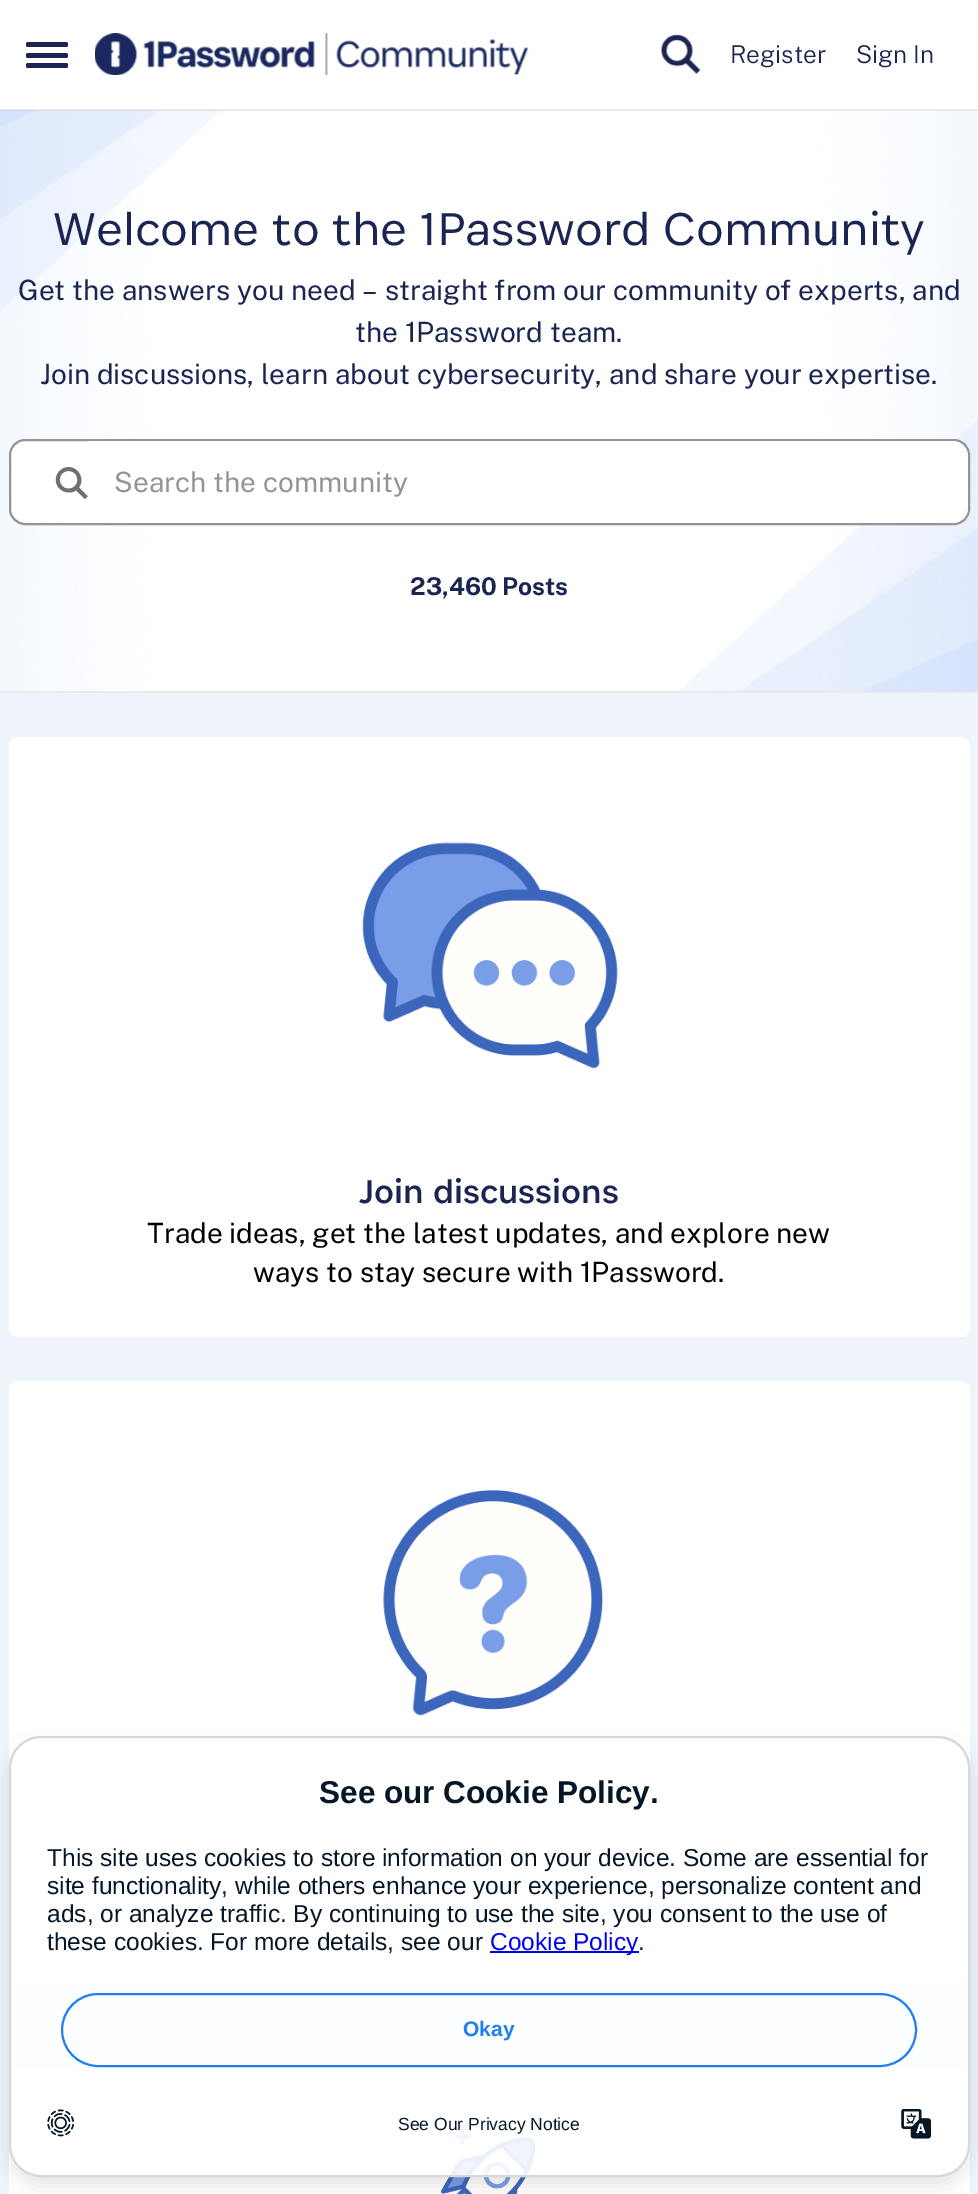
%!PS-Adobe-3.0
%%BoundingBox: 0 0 978 2194
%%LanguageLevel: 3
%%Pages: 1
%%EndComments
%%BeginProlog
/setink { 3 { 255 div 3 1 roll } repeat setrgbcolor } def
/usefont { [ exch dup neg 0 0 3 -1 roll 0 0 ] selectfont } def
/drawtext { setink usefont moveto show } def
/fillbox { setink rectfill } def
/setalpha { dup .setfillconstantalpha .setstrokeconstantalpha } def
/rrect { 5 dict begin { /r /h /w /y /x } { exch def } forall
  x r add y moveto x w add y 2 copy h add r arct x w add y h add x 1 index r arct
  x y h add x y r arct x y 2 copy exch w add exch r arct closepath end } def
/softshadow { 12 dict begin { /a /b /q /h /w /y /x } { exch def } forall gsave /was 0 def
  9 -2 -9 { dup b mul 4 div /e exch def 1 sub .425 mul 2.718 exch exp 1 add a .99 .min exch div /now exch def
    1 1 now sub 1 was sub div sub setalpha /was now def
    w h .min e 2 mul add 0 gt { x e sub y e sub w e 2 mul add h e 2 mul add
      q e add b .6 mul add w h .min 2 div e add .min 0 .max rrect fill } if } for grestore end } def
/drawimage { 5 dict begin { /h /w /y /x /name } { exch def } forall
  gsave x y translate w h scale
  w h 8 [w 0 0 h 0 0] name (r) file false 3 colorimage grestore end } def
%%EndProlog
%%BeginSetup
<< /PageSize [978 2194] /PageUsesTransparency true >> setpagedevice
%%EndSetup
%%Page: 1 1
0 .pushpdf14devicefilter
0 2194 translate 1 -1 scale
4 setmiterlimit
0 0 978 2194 255 255 255 fillbox
(assets/img3.rgb) 0 110 978 582 drawimage
0.08 setalpha
0 109 978 2 0 0 0 fillbox
1 setalpha
26 37 82 setink
26 42 42 5 2 rrect fill
26 53 42 5 2 rrect fill
26 63 42 5 2 rrect fill
(assets/img1.rgb) 95 33 434 42 drawimage
(assets/img2.rgb) 661 34 40 41 drawimage
(Register) 730 63 /PublicSans-Light 24.5 26 37 82 drawtext
(Sign In) 856 63 /PublicSans-Light 24.5 26 37 82 drawtext
0.08 setalpha
0 691 978 2 0 0 0 fillbox
1 setalpha
(Welcome to the 1Password Community) 53 245 /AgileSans-Light 49 26 37 82 drawtext
(Get the answers you need – straight from our community of experts, and) 18 300 /PublicSans-Regular 28 26 37 82 drawtext
(the 1Password team.) 355 342 /PublicSans-Regular 28 26 37 82 drawtext
(Join discussions, learn about cybersecurity, and share your expertise.) 40 384 /PublicSans-Regular 28 26 37 82 drawtext
255 255 255 setink
10 440 959 84 15 rrect gsave fill grestore
148 148 148 setink
2 setlinewidth
stroke
(assets/img4.rgb) 55 467 33 33 drawimage
255 255 255 setink
88 441 moveto 952 441 lineto 961 441 968 448 968 457 curveto 968 507 lineto 968 516 961 523 952 523 curveto 88 523 lineto closepath fill
(Search the community) 114 492 /PublicSans-Regular 28 148 148 148 drawtext
(23,460 Posts) 410 595 /PublicSans-Bold 24.5 26 37 82 drawtext
0 693 978 1501 239 243 250 fillbox
255 255 255 setink
9 737 961 600 9 rrect fill
(assets/img5.rgb) 362 842 256 227 drawimage
(Join discussions) 359 1203 /AgileSans-Regular 35 26 37 82 drawtext
(Trade ideas, get the latest updates, and explore new) 147 1243 /PublicSans-Regular 28 0 0 0 drawtext
(ways to stay secure with 1Password.) 253 1282 /PublicSans-Regular 28 0 0 0 drawtext
255 255 255 setink
9 1381 961 600 9 rrect fill
(assets/img6.rgb) 383 1490 220 226 drawimage
9 2069 961 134 9 rrect fill
(assets/img7.rgb) 441 2129 95 65 drawimage
gsave
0 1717 moveto 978 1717 lineto 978 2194 lineto 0 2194 lineto closepath 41 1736 moveto 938 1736 lineto 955.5 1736 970 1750.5 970 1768 curveto 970 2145 lineto 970 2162.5 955.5 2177 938 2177 curveto 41 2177 lineto 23.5 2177 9 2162.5 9 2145 curveto 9 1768 lineto 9 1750.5 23.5 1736 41 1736 curveto closepath eoclip newpath
0 0 0 setink
9 1745 961 441 32 9 0.1 softshadow
grestore
0.9 setalpha
10 1737 959 439 31 rrect fill
1 setalpha
216 216 216 setink
10 1737 959 439 31 rrect stroke
(See our Cookie Policy.) 319 1803 /LiberationSans-Bold 31.5 5 22 39 drawtext
(This site uses cookies to store information on your device. Some are essential for) 47 1866 /LiberationSans-Regular 24.5 5 22 39 drawtext
(site functionality, while others enhance your experience, personalize content and) 47 1894 /LiberationSans-Regular 24.5 5 22 39 drawtext
(ads, or analyze traffic. By continuing to use the site, you consent to the use of) 47 1922 /LiberationSans-Regular 24.5 5 22 39 drawtext
(these cookies. For more details, see our) 47 1950 /LiberationSans-Regular 24.5 5 22 39 drawtext
490 1951 149 2 0 0 238 fillbox
(Cookie Policy) 490 1950 /LiberationSans-Regular 24.5 0 0 238 drawtext
(.) 638 1950 /LiberationSans-Regular 24.5 5 22 39 drawtext
30 128 238 setink
62 1994 854 72 36 rrect stroke
(Okay) 463 2036 /LiberationSans-Bold 21 30 128 238 drawtext
(assets/img8.rgb) 47 2109 27 28 drawimage
(See Our Privacy Notice) 398 2130 /LiberationSans-Regular 17.5 5 22 39 drawtext
(assets/img9.rgb) 901 2109 30 30 drawimage
.poppdf14devicefilter showpage
%%EOF
